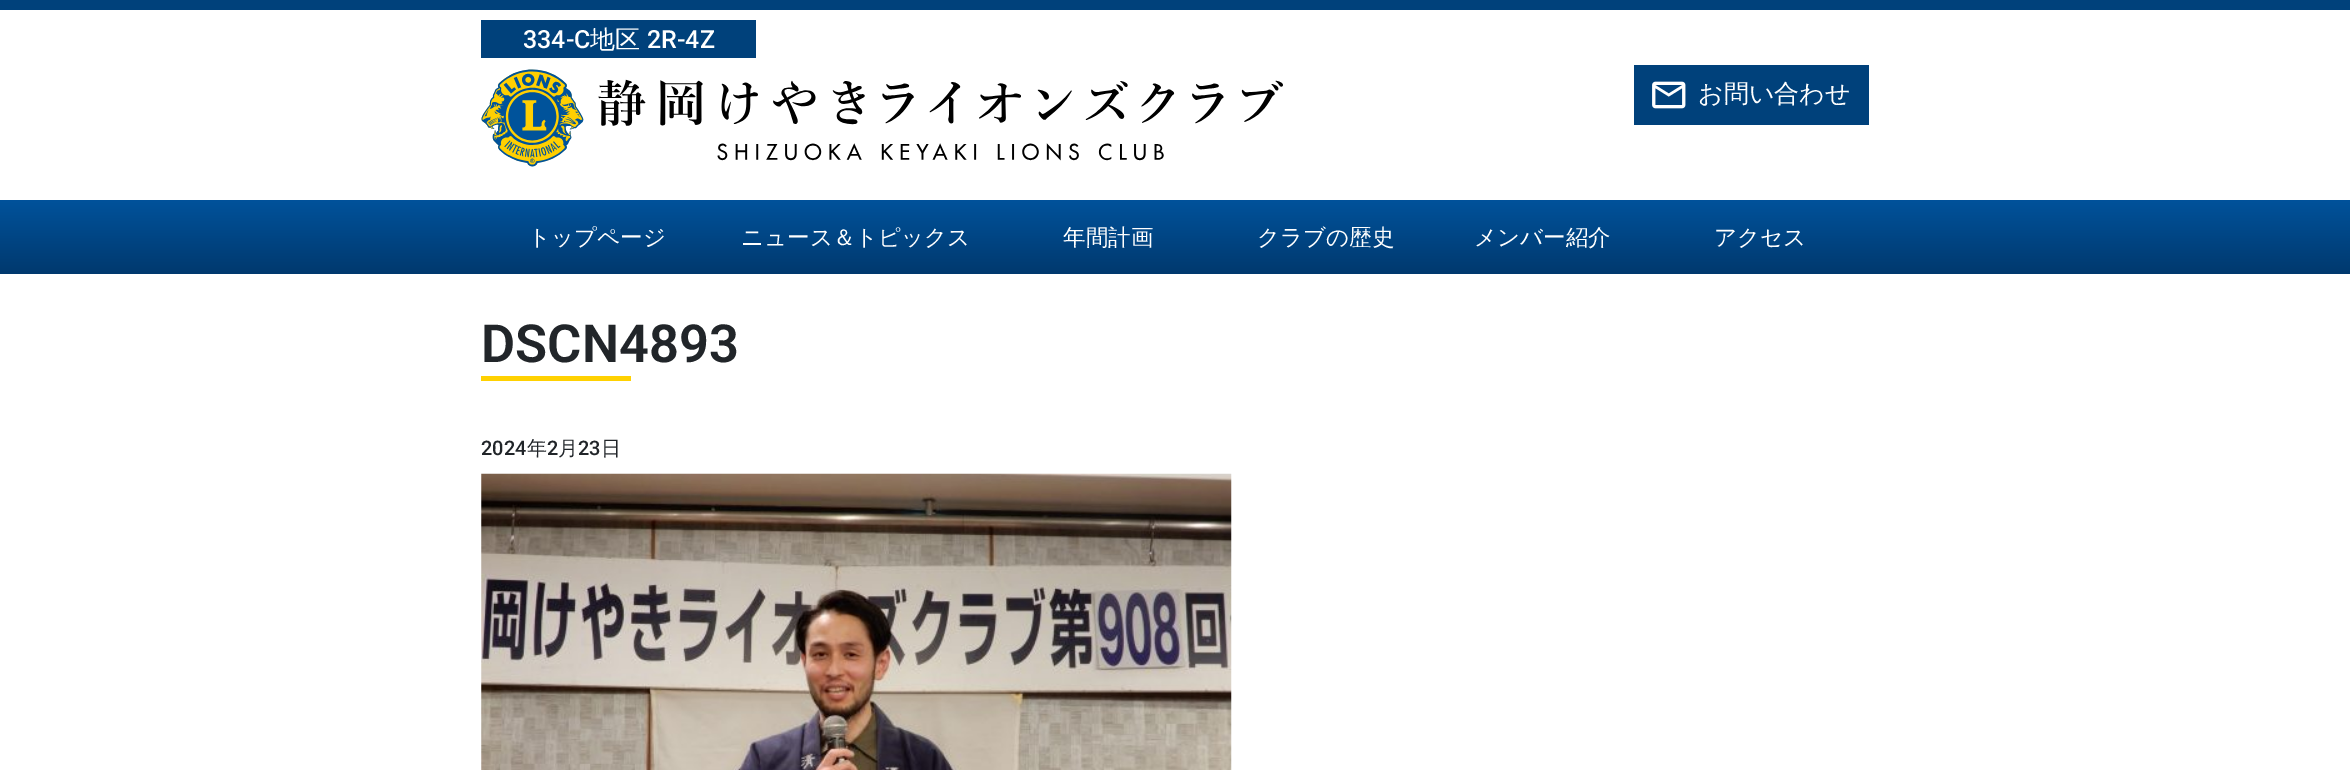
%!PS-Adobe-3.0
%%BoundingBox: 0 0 2350 770
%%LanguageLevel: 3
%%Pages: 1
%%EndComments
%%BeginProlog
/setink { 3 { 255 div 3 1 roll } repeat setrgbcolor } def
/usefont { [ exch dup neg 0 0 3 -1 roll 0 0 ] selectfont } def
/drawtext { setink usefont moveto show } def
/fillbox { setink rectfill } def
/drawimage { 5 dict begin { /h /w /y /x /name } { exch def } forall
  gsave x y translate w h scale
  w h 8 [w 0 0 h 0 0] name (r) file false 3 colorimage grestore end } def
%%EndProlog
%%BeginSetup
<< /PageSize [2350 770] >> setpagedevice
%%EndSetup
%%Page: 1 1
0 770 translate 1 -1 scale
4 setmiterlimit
0 0 2350 770 255 255 255 fillbox
0 0 2350 10 0 65 123 fillbox
481 20 275 38 0 65 123 fillbox
(334-C) 523 48 /Roboto-Medium 25 255 255 255 drawtext
(地区) 590 48 /WenQuanYiZenHei-Medium 25 255 255 255 drawtext
(2R-4Z) 647 48 /Roboto-Medium 25 255 255 255 drawtext
(assets/img1.rgb) 481 69 802 98 drawimage
1634 65 235 60 0 65 123 fillbox
(assets/img2.rgb) 1652 81 34 28 drawimage
(お問い合わせ) 1698 102 /WenQuanYiZenHei-Medium 25 255 255 255 drawtext
gsave 0 200 moveto 2350 200 lineto 2350 274 lineto 0 274 lineto closepath clip newpath
<< /ShadingType 2 /ColorSpace /DeviceRGB /Coords [1175 200 1175 274] /Extend [true true] /Function << /FunctionType 2 /Domain [0 1] /C0 [0 0.322 0.608] /C1 [0 0.224 0.431] /N 1 >> >> shfill grestore
(トップページ) 528 245 /WenQuanYiZenHei-Medium 22.5 255 255 255 drawtext
(ニュース＆トピックス) 741 245 /WenQuanYiZenHei-Medium 22.5 255 255 255 drawtext
(年間計画) 1063 245 /WenQuanYiZenHei-Medium 22.5 255 255 255 drawtext
(クラブの歴史) 1257 245 /WenQuanYiZenHei-Medium 22.5 255 255 255 drawtext
(メンバー紹介) 1474 245 /WenQuanYiZenHei-Medium 22.5 255 255 255 drawtext
(アクセス) 1714 245 /WenQuanYiZenHei-Medium 22.5 255 255 255 drawtext
(DSCN4893) 481 362 /Roboto-SemiBold 52.5 33 37 41 drawtext
481 376 150 5 255 209 1 fillbox
(2024) 481 455 /Roboto-Medium 20 33 37 41 drawtext
(年) 527 455 /WenQuanYiZenHei-Medium 20 33 37 41 drawtext
(2) 547 455 /Roboto-Medium 20 33 37 41 drawtext
(月) 558 455 /WenQuanYiZenHei-Medium 20 33 37 41 drawtext
(23) 578 455 /Roboto-Medium 20 33 37 41 drawtext
(日) 601 455 /WenQuanYiZenHei-Medium 20 33 37 41 drawtext
(assets/img3.rgb) 481 473 751 297 drawimage
showpage
%%EOF
